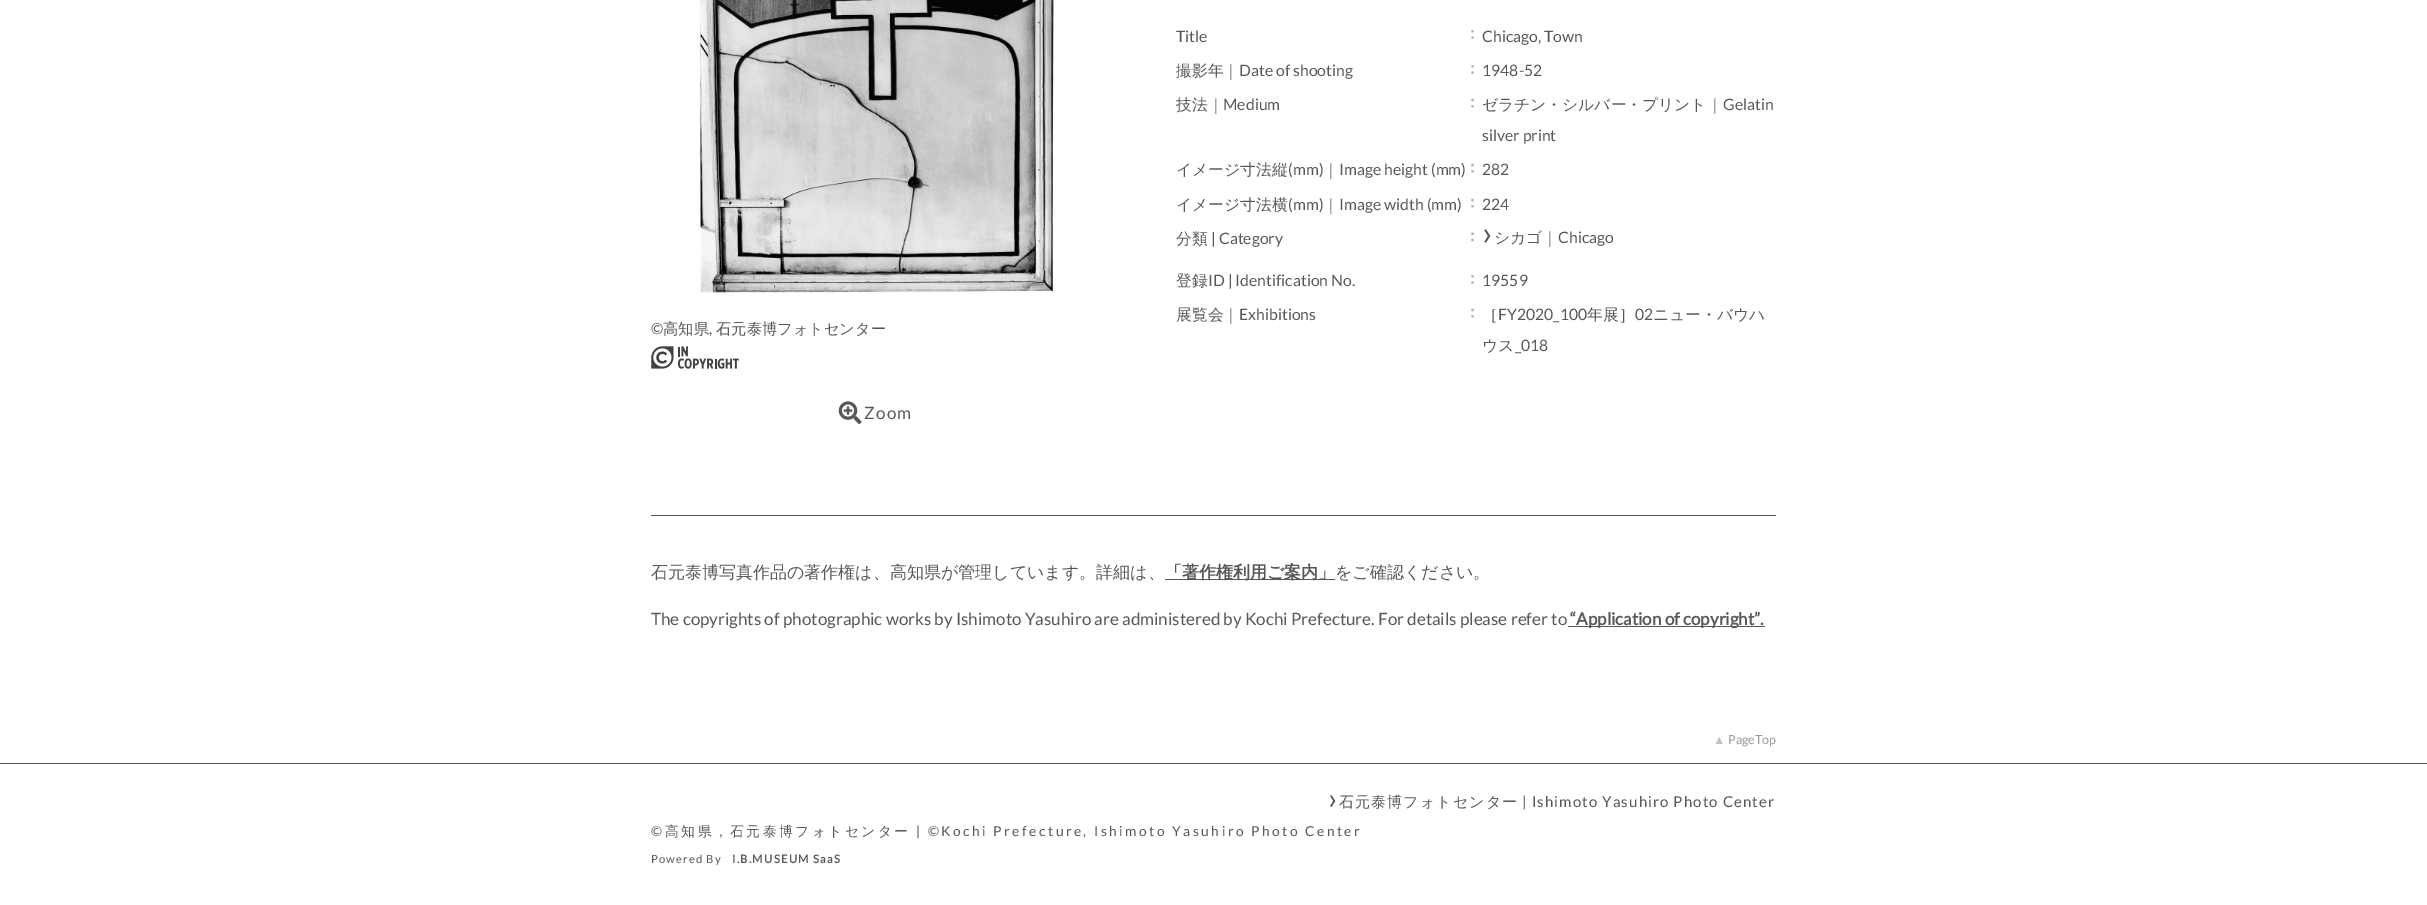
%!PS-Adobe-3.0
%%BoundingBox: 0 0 2427 905
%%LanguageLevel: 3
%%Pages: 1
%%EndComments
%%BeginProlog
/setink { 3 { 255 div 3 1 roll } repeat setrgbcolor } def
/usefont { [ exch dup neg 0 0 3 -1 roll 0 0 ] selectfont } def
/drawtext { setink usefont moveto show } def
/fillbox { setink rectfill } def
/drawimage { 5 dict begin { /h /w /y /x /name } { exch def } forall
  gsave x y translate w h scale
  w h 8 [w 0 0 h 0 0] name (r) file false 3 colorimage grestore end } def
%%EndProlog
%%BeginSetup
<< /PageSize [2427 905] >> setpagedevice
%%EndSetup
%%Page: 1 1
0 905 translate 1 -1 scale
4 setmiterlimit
0 0 2427 905 255 255 255 fillbox
0 763 2427 1 89 87 87 fillbox
(Title) 1176 42 /Lato-Regular 15.75 89 87 87 drawtext
(assets/img1.rgb) 1471 30 3 9 drawimage
(Chicago, Town) 1482 42 /Lato-Regular 15.75 89 87 87 drawtext
(撮影年｜) 1176 76 /WenQuanYiZenHei-Medium 15.75 89 87 87 drawtext
(Date of shooting) 1239 76 /Lato-Regular 15.75 89 87 87 drawtext
(assets/img1.rgb) 1471 65 3 9 drawimage
(1948-52) 1482 76 /Lato-Regular 15.75 89 87 87 drawtext
(技法｜) 1176 110 /WenQuanYiZenHei-Medium 15.75 89 87 87 drawtext
(Medium) 1223 110 /Lato-Regular 15.75 89 87 87 drawtext
(assets/img2.rgb) 1471 98 3 10 drawimage
(ゼラチン・シルバー・プリント｜) 1482 110 /WenQuanYiZenHei-Medium 15.75 89 87 87 drawtext
(Gelatin) 1723 110 /Lato-Regular 15.75 89 87 87 drawtext
(silver print) 1482 141 /Lato-Regular 15.75 89 87 87 drawtext
(イメージ寸法縦) 1176 175 /WenQuanYiZenHei-Medium 15.75 89 87 87 drawtext
(\(mm\)) 1288 175 /Lato-Regular 15.75 89 87 87 drawtext
(｜) 1323 175 /WenQuanYiZenHei-Medium 15.75 89 87 87 drawtext
(Image height \(mm\)) 1339 175 /Lato-Regular 15.75 89 87 87 drawtext
(assets/img2.rgb) 1471 163 3 10 drawimage
(282) 1482 175 /Lato-Regular 15.75 89 87 87 drawtext
(イメージ寸法横) 1176 210 /WenQuanYiZenHei-Medium 15.75 89 87 87 drawtext
(\(mm\)) 1288 210 /Lato-Regular 15.75 89 87 87 drawtext
(｜) 1323 210 /WenQuanYiZenHei-Medium 15.75 89 87 87 drawtext
(Image width \(mm\)) 1339 210 /Lato-Regular 15.75 89 87 87 drawtext
(assets/img2.rgb) 1471 198 3 10 drawimage
(224) 1482 210 /Lato-Regular 15.75 89 87 87 drawtext
(分類) 1176 244 /WenQuanYiZenHei-Medium 15.75 89 87 87 drawtext
(| Category) 1211 244 /Lato-Regular 15.75 89 87 87 drawtext
(assets/img3.rgb) 1471 232 3 10 drawimage
(›) 1482 245 /Lato-Regular 34 89 87 87 drawtext
(シカゴ｜) 1494 243 /WenQuanYiZenHei-Medium 15.75 89 87 87 drawtext
(Chicago) 1558 243 /Lato-Regular 15.75 89 87 87 drawtext
(登録) 1176 286 /WenQuanYiZenHei-Medium 15.75 89 87 87 drawtext
(ID | Identification No.) 1208 286 /Lato-Regular 15.75 89 87 87 drawtext
(assets/img1.rgb) 1471 275 3 9 drawimage
(19559) 1482 286 /Lato-Regular 15.75 89 87 87 drawtext
(展覧会｜) 1176 320 /WenQuanYiZenHei-Medium 15.75 89 87 87 drawtext
(Exhibitions) 1239 320 /Lato-Regular 15.75 89 87 87 drawtext
(assets/img2.rgb) 1471 308 3 10 drawimage
(［) 1482 320 /WenQuanYiZenHei-Medium 15.75 89 87 87 drawtext
(FY2020_100) 1498 320 /Lato-Regular 15.75 89 87 87 drawtext
(年展］) 1587 320 /WenQuanYiZenHei-Medium 15.75 89 87 87 drawtext
(02) 1635 320 /Lato-Regular 15.75 89 87 87 drawtext
(ニュー・バウハ) 1653 320 /WenQuanYiZenHei-Medium 15.75 89 87 87 drawtext
(ウス) 1482 351 /WenQuanYiZenHei-Medium 15.75 89 87 87 drawtext
(_018) 1515 351 /Lato-Regular 15.75 89 87 87 drawtext
(assets/img4.rgb) 699 0 355 293 drawimage
(©) 651 334 /Lato-Regular 15.25 89 87 87 drawtext
(高知県) 663 334 /WenQuanYiZenHei-Medium 15.25 89 87 87 drawtext
(,) 709 334 /Lato-Regular 15.25 89 87 87 drawtext
(石元泰博フォトセンター) 716 334 /WenQuanYiZenHei-Medium 15.25 89 87 87 drawtext
(assets/img5.rgb) 651 346 88 23 drawimage
(assets/img6.rgb) 838 401 24 24 drawimage
/Lato-Regular 17 usefont
864 419 moveto 1.25 0 (Zoom) ashow
651 515 1125 1 89 87 87 fillbox
(石元泰博写真作品の著作権は、高知県が管理しています。詳細は、) 651 578 /WenQuanYiZenHei-Medium 17 89 87 87 drawtext
1165 579 170 1 89 87 87 fillbox
(「著作権利用ご案内」) 1165 578 /WenQuanYiZenHei-Bold 17 89 87 87 drawtext
(をご確認ください。) 1335 578 /WenQuanYiZenHei-Medium 17 89 87 87 drawtext
(The copyrights of photographic works by Ishimoto Yasuhiro are administered by Kochi Prefecture. For details please refer to) 651 625 /Lato-Regular 17 89 87 87 drawtext
1568 626 197 1 89 87 87 fillbox
(“Application of copyright”.) 1570 625 /Lato-Bold 17 89 87 87 drawtext
(▲) 1713 744 /LiberationSans-Regular 12.5 195 195 195 drawtext
(PageTop) 1728 744 /Lato-Regular 12.5 155 154 154 drawtext
/Lato-Regular 30 usefont
89 87 87 setink
1328 809 moveto 1.1 0 (›) ashow
/WenQuanYiZenHei-Medium 15 usefont
1339 807 moveto 1.1 0 (石元泰博フォトセンター) ashow
/Lato-Regular 15 usefont
1522 807 moveto 1.1 0 (| Ishimoto Yasuhiro Photo Center) ashow
/Lato-Regular 13.75 usefont
651 836 moveto 2.5 0 (©) ashow
/WenQuanYiZenHei-Medium 13.75 usefont
665 836 moveto 2.5 0 (高知県，石元泰博フォトセンター) ashow
/Lato-Regular 13.75 usefont
916 836 moveto 2.5 0 (| ©Kochi Prefecture, Ishimoto Yasuhiro Photo Center) ashow
/Lato-Regular 11.25 usefont
651 863 moveto 1.1 0 (Powered By) ashow
/Lato-Bold 11.25 usefont
732 863 moveto 1.25 0 (I.B.MUSEUM SaaS) ashow
showpage
%%EOF
